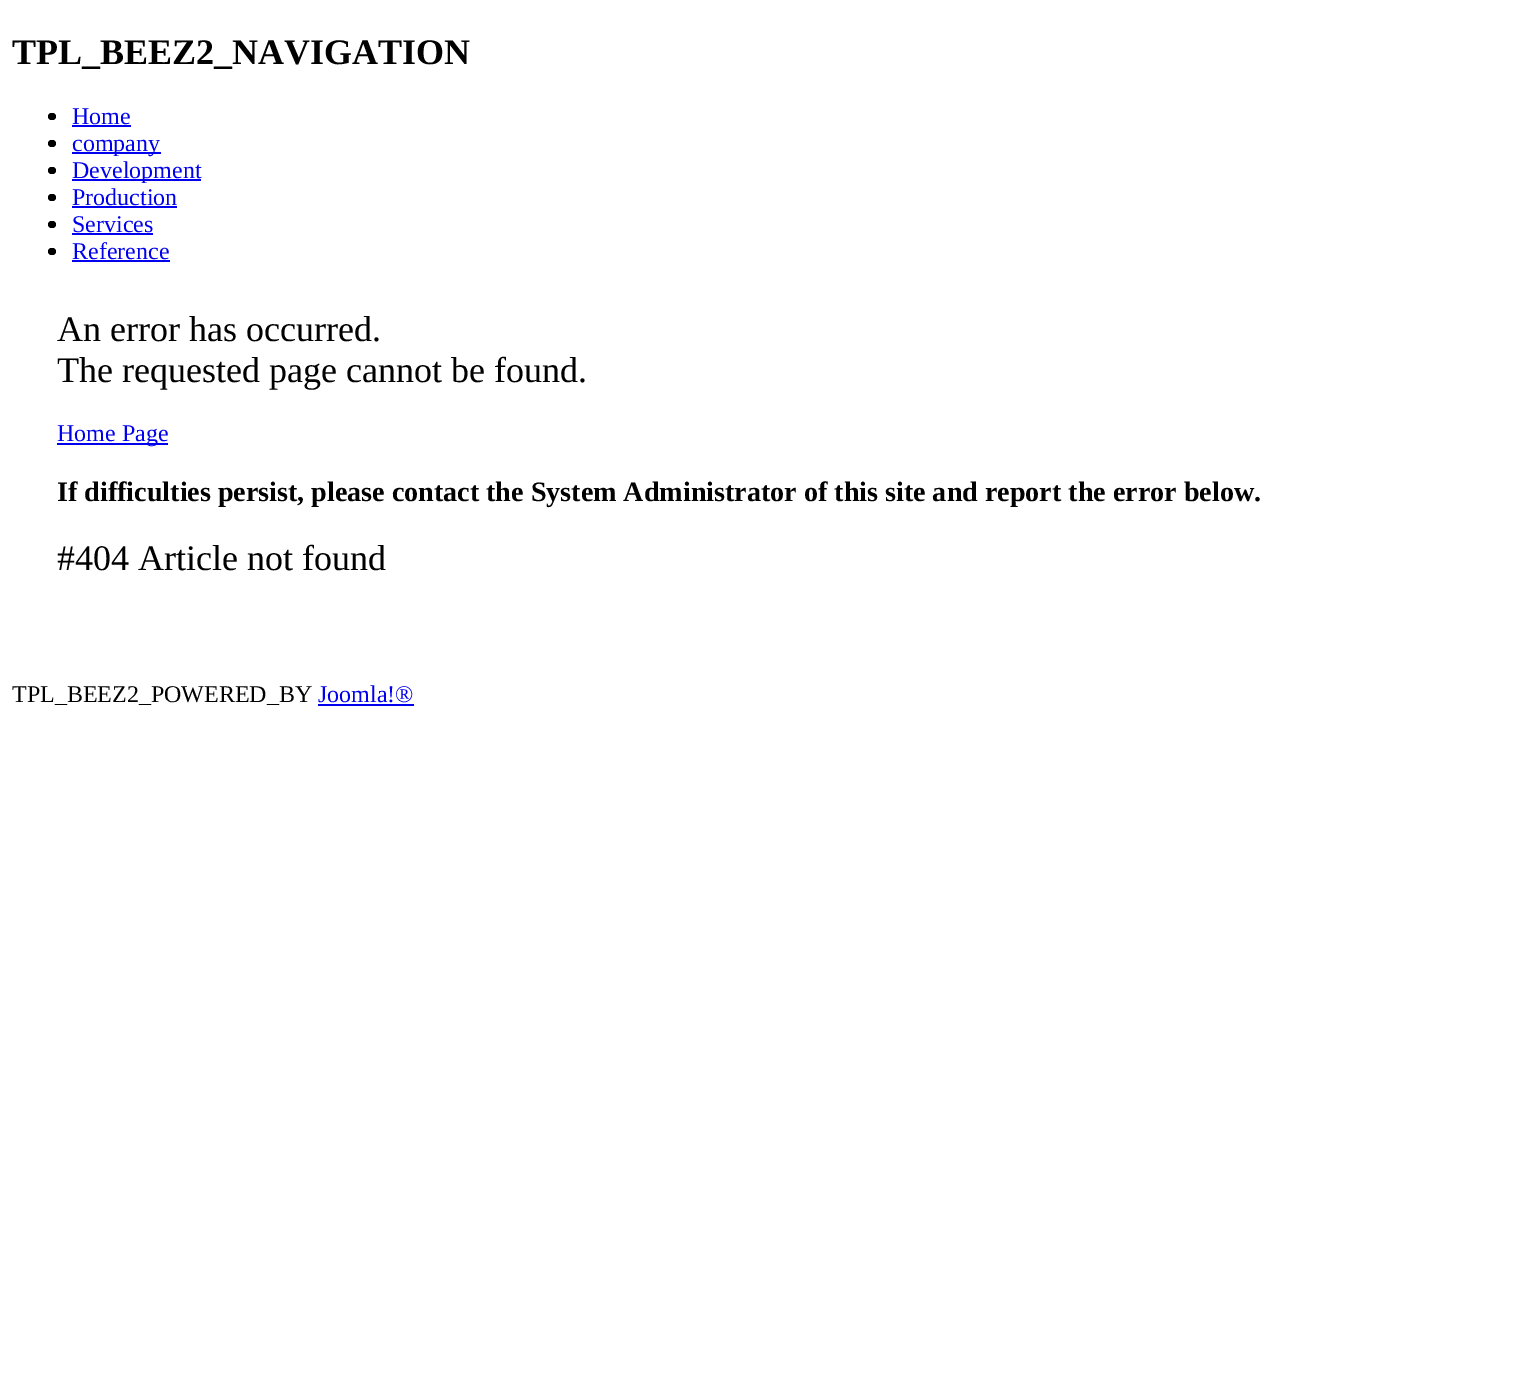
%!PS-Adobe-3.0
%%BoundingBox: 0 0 1539 1386
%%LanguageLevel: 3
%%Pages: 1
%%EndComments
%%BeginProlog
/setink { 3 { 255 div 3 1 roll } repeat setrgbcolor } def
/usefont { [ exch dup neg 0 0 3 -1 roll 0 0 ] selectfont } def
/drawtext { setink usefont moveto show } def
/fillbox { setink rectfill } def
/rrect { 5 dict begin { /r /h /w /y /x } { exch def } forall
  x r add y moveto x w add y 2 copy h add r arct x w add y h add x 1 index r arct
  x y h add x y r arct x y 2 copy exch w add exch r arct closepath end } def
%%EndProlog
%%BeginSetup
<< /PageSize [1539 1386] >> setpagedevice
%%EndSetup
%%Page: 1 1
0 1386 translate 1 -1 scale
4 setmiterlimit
0 0 1539 1386 255 255 255 fillbox
(TPL_BEEZ2_NAVIGATION) 12 64 /LiberationSerif-Bold 36 0 0 0 drawtext
48 113 8 7 3.5 rrect fill
(Home) 72 124 /LiberationSerif-Regular 24 0 0 238 drawtext
72 125 59 2 0 0 238 fillbox
0 0 0 setink
48 140 8 7 3.5 rrect fill
72 152 89 2 0 0 238 fillbox
(company) 72 151 /LiberationSerif-Regular 24 0 0 238 drawtext
0 0 0 setink
48 167 8 7 3.5 rrect fill
72 179 129 2 0 0 238 fillbox
(Development) 72 178 /LiberationSerif-Regular 24 0 0 238 drawtext
0 0 0 setink
48 194 8 7 3.5 rrect fill
(Production) 72 205 /LiberationSerif-Regular 24 0 0 238 drawtext
72 206 105 2 0 0 238 fillbox
0 0 0 setink
48 221 8 7 3.5 rrect fill
(Services) 72 232 /LiberationSerif-Regular 24 0 0 238 drawtext
72 233 81 2 0 0 238 fillbox
0 0 0 setink
48 248 8 7 3.5 rrect fill
(Reference) 72 259 /LiberationSerif-Regular 24 0 0 238 drawtext
72 260 98 2 0 0 238 fillbox
(An error has occurred.) 57 341 /LiberationSerif-Regular 36 0 0 0 drawtext
(The requested page cannot be found.) 57 382 /LiberationSerif-Regular 36 0 0 0 drawtext
57 443 111 2 0 0 238 fillbox
(Home Page) 57 441 /LiberationSerif-Regular 24 0 0 238 drawtext
(If difficulties persist, please contact the System Administrator of this site and report the error below.) 57 501 /LiberationSerif-Bold 28.1 0 0 0 drawtext
(#404 Article not found) 57 570 /LiberationSerif-Regular 36 0 0 0 drawtext
(TPL_BEEZ2_POWERED_BY) 12 702 /LiberationSerif-Regular 24 0 0 0 drawtext
(Joomla!®) 318 702 /LiberationSerif-Regular 24 0 0 238 drawtext
318 704 96 2 0 0 238 fillbox
showpage
%%EOF
